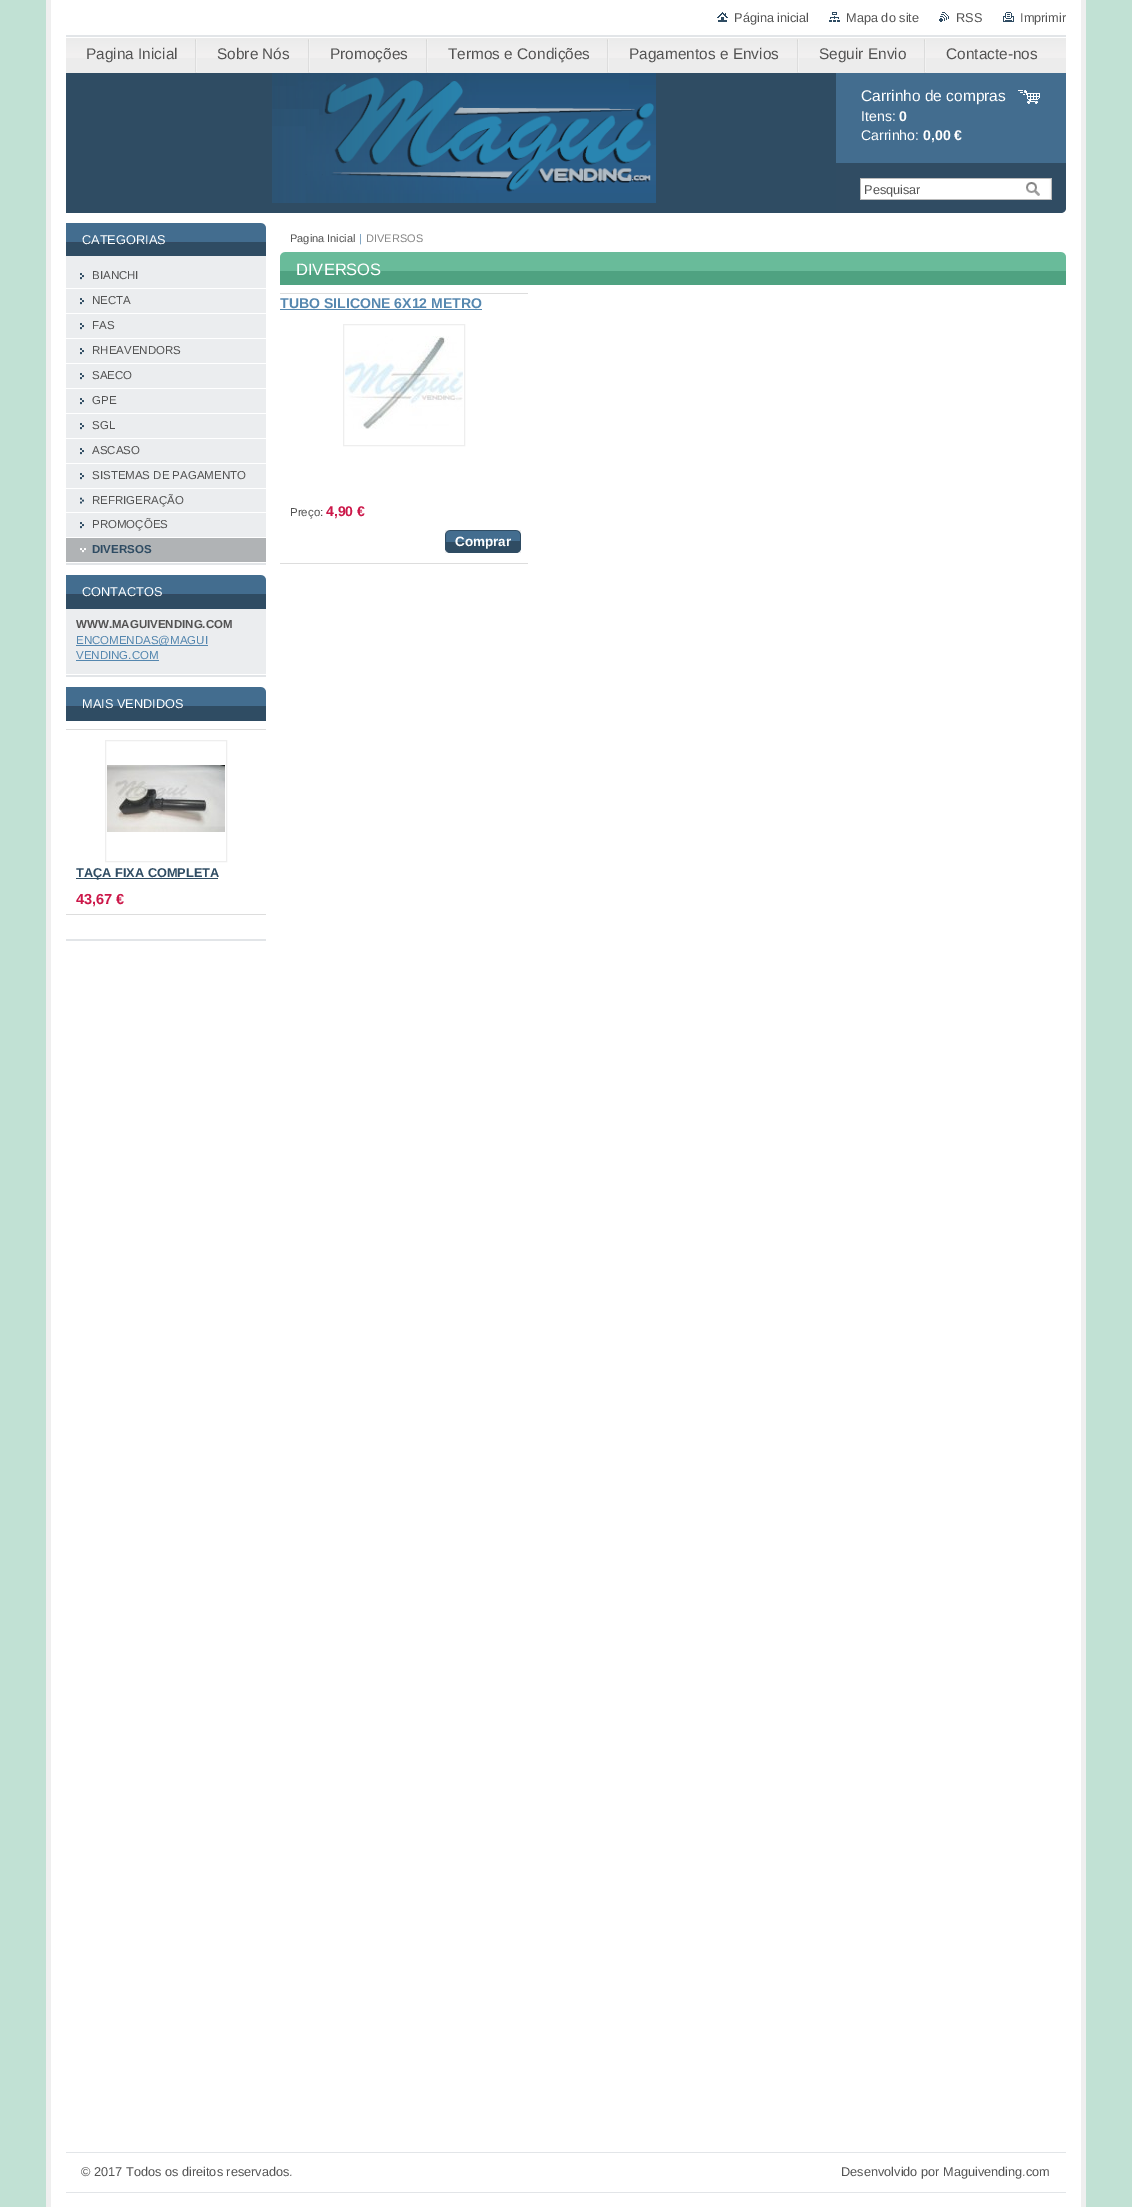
%!PS-Adobe-3.0
%%BoundingBox: 0 0 1132 2207
%%LanguageLevel: 3
%%Pages: 1
%%EndComments
%%BeginProlog
/setink { 3 { 255 div 3 1 roll } repeat setrgbcolor } def
/usefont { [ exch dup neg 0 0 3 -1 roll 0 0 ] selectfont } def
/drawtext { setink usefont moveto show } def
/fillbox { setink rectfill } def
/drawimage { 5 dict begin { /h /w /y /x /name } { exch def } forall
  gsave x y translate w h scale
  w h 8 [w 0 0 h 0 0] name (r) file false 3 colorimage grestore end } def
%%EndProlog
%%BeginSetup
<< /PageSize [1132 2207] >> setpagedevice
%%EndSetup
%%Page: 1 1
0 2207 translate 1 -1 scale
4 setmiterlimit
0 0 1132 2207 193 225 212 fillbox
51 0 1030 2207 255 255 255 fillbox
1081 0 5 2207 239 239 239 fillbox
46 0 5 2207 239 239 239 fillbox
(assets/img1.rgb) 717 12 11 10 drawimage
(Página inicial) 734 22 /LiberationSans-Regular 12.75 83 83 83 drawtext
(assets/img2.rgb) 829 12 11 10 drawimage
(Mapa do site) 846 22 /LiberationSans-Regular 12.75 83 83 83 drawtext
(assets/img3.rgb) 939 12 10 10 drawimage
(RSS) 956 22 /LiberationSans-Regular 12.75 83 83 83 drawtext
(assets/img4.rgb) 1003 12 11 10 drawimage
(Imprimir) 1020 22 /LiberationSans-Regular 12.75 83 83 83 drawtext
66 58 1000 15 236 236 236 fillbox
(assets/img5.rgb) 66 35 1000 23 drawimage
(assets/img6.rgb) 195 39 2 34 drawimage
(Pagina Inicial) 86 59 /LiberationSans-Regular 15.4 83 83 83 drawtext
(assets/img6.rgb) 308 39 2 34 drawimage
(Sobre Nós) 217 59 /LiberationSans-Regular 15.4 83 83 83 drawtext
(assets/img6.rgb) 426 39 2 34 drawimage
(Promoções) 330 59 /LiberationSans-Regular 15.4 83 83 83 drawtext
(assets/img6.rgb) 607 39 2 34 drawimage
(Termos e Condições) 448 59 /LiberationSans-Regular 15.4 83 83 83 drawtext
(assets/img6.rgb) 797 39 2 34 drawimage
(Pagamentos e Envios) 629 59 /LiberationSans-Regular 15.4 83 83 83 drawtext
(assets/img6.rgb) 924 39 2 34 drawimage
(Seguir Envio) 819 59 /LiberationSans-Regular 15.4 83 83 83 drawtext
(Contacte-nos) 946 59 /LiberationSans-Regular 15.4 83 83 83 drawtext
66 73 770 140 47 76 99 fillbox
(assets/img7.rgb) 272 73 384 130 drawimage
836 73 230 90 67 109 143 fillbox
(assets/img8.rgb) 1018 90 22 14 drawimage
(Carrinho de compras) 861 101 /LiberationSans-Regular 15.5 255 255 255 drawtext
(Itens:) 861 121 /LiberationSans-Regular 14.1 255 255 255 drawtext
(0) 899 121 /LiberationSans-Bold 14.1 255 255 255 drawtext
(Carrinho:) 861 140 /LiberationSans-Regular 14.1 255 255 255 drawtext
(0,00 €) 923 140 /LiberationSans-Bold 14.1 255 255 255 drawtext
(assets/img9.rgb) 836 163 230 50 drawimage
(Pesquisar) 864 194 /LiberationSans-Regular 12.75 83 83 83 drawtext
(assets/img10.rgb) 1026 182 17 14 drawimage
66 563 200 2 226 229 232 fillbox
66 256 200 281 235 237 239 fillbox
66 243 200 13 47 76 99 fillbox
(assets/img11.rgb) 66 223 200 20 drawimage
(CATEGORIAS) 82 244 /LiberationSans-Regular 12.75 255 255 255 drawtext
(assets/img12.rgb) 80 273 4 7 drawimage
66 288 200 1 255 255 255 fillbox
(BIANCHI) 92 279 /LiberationSans-Regular 11.5 83 83 83 drawtext
(assets/img12.rgb) 80 298 4 7 drawimage
66 313 200 1 255 255 255 fillbox
(NECTA) 92 304 /LiberationSans-Regular 11.5 83 83 83 drawtext
(assets/img12.rgb) 80 323 4 7 drawimage
66 338 200 1 255 255 255 fillbox
(FAS) 92 329 /LiberationSans-Regular 11.5 83 83 83 drawtext
(assets/img12.rgb) 80 348 4 7 drawimage
66 363 200 1 255 255 255 fillbox
(RHEAVENDORS) 92 354 /LiberationSans-Regular 11.5 83 83 83 drawtext
(assets/img12.rgb) 80 373 4 7 drawimage
66 388 200 1 255 255 255 fillbox
(SAECO) 92 379 /LiberationSans-Regular 11.5 83 83 83 drawtext
(assets/img12.rgb) 80 398 4 7 drawimage
66 413 200 1 255 255 255 fillbox
(GPE) 92 404 /LiberationSans-Regular 11.5 83 83 83 drawtext
(assets/img12.rgb) 80 423 4 7 drawimage
66 438 200 1 255 255 255 fillbox
(SGL) 92 429 /LiberationSans-Regular 11.5 83 83 83 drawtext
(assets/img12.rgb) 80 448 4 7 drawimage
66 463 200 1 255 255 255 fillbox
(ASCASO) 92 454 /LiberationSans-Regular 11.5 83 83 83 drawtext
(assets/img12.rgb) 80 473 4 7 drawimage
66 488 200 1 255 255 255 fillbox
(SISTEMAS DE PAGAMENTO) 92 479 /LiberationSans-Regular 11.5 83 83 83 drawtext
(assets/img13.rgb) 80 497 4 7 drawimage
66 512 200 1 255 255 255 fillbox
(REFRIGERAÇÃO) 92 504 /LiberationSans-Regular 11.5 83 83 83 drawtext
(assets/img12.rgb) 80 522 4 7 drawimage
(PROMOÇÕES) 92 528 /LiberationSans-Regular 11.5 83 83 83 drawtext
66 538 200 24 176 179 181 fillbox
(assets/img14.rgb) 80 548 6 5 drawimage
(DIVERSOS) 92 553 /LiberationSans-Bold 11.5 47 76 99 drawtext
66 675 200 2 226 229 232 fillbox
66 609 200 65 235 237 239 fillbox
66 595 200 14 47 76 99 fillbox
(assets/img11.rgb) 66 575 200 20 drawimage
(CONTACTOS) 82 596 /LiberationSans-Regular 12.75 255 255 255 drawtext
(WWW.MAGUIVENDING.COM) 76 628 /LiberationSans-Bold 11.5 83 83 83 drawtext
76 645 132 1 85 135 175 fillbox
(ENCOMENDAS@MAGUI) 76 644 /LiberationSans-Regular 11.5 85 135 175 drawtext
(VENDING.COM) 76 659 /LiberationSans-Regular 11.5 85 135 175 drawtext
76 660 83 1 85 135 175 fillbox
66 939 200 2 226 229 232 fillbox
66 707 200 14 47 76 99 fillbox
(assets/img11.rgb) 66 687 200 20 drawimage
(MAIS VENDIDOS) 82 708 /LiberationSans-Regular 12.75 255 255 255 drawtext
66 729 200 1 221 221 221 fillbox
66 914 200 1 221 221 221 fillbox
(assets/img15.rgb) 107 765 118 67 drawimage
238 238 238 setink
105.5 740.5 121 121 rectstroke
76 878 142 1 47 76 99 fillbox
(TAÇA FIXA COMPLETA) 76 877 /LiberationSans-Bold 12.75 47 76 99 drawtext
(43,67 €) 76 904 /LiberationSans-Bold 14.5 204 23 73 drawtext
(Pagina Inicial) 290 242 /LiberationSans-Regular 11 83 83 83 drawtext
(|) 359 242 /LiberationSans-Regular 11 85 135 175 drawtext
(DIVERSOS) 366 242 /LiberationSans-Regular 11 135 135 135 drawtext
280 271 786 14 79 162 129 fillbox
(assets/img16.rgb) 280 252 786 19 drawimage
(assets/img17.rgb) 1061 252 5 5 drawimage
(DIVERSOS) 296 275 /LiberationSans-Regular 16.5 255 255 255 drawtext
280 293 248 1 221 221 221 fillbox
280 563 248 1 221 221 221 fillbox
(TUBO SILICONE 6X12 METRO) 280 308 /LiberationSans-Bold 14.1 85 135 175 drawtext
280 309 202 1 85 135 175 fillbox
(assets/img18.rgb) 345 336 118 93 drawimage
238 238 238 setink
343.5 324.5 121 121 rectstroke
(Preço:) 290 516 /LiberationSans-Regular 11.5 83 83 83 drawtext
(4,90 €) 326 516 /LiberationSans-Bold 14 204 23 73 drawtext
(assets/img19.rgb) 445 530 71 12 drawimage
(assets/img20.rgb) 516 530 5 11 drawimage
(assets/img21.rgb) 445 542 56 11 drawimage
(assets/img22.rgb) 501 541 20 12 drawimage
(Comprar) 455 546 /LiberationSans-Bold 13.5 255 255 255 drawtext
66 2152 1000 1 226 229 232 fillbox
66 2192 1000 1 226 229 232 fillbox
(© 2017 Todos os direitos reservados.) 81 2176 /LiberationSans-Regular 12.75 83 83 83 drawtext
(Desenvolvido por Maguivending.com) 841 2176 /LiberationSans-Regular 12.75 83 83 83 drawtext
showpage
%%EOF
